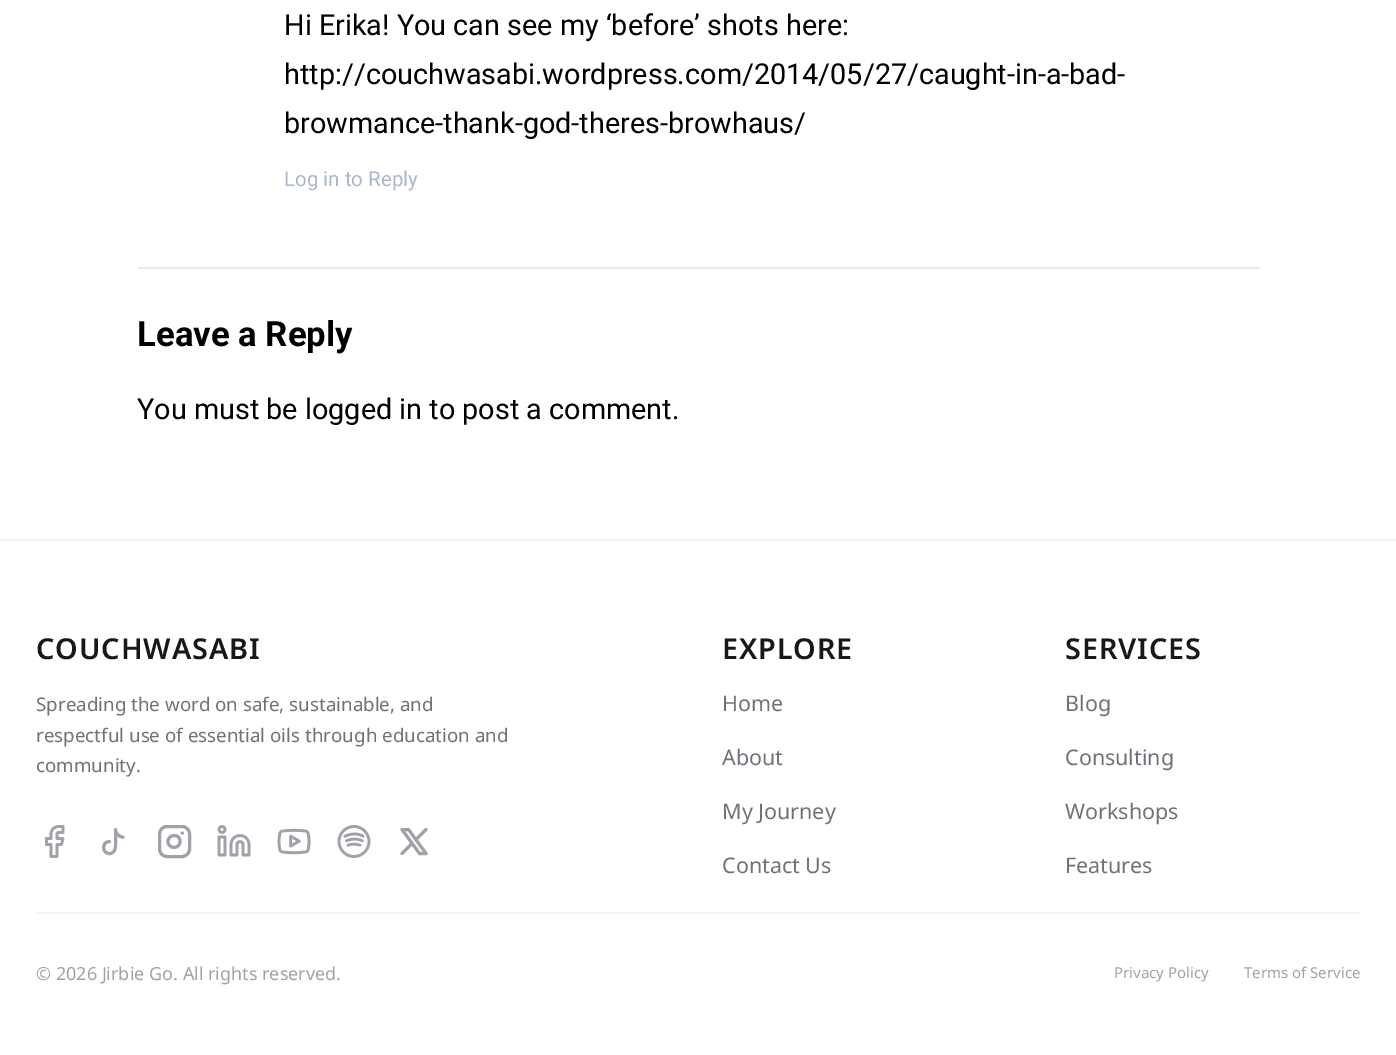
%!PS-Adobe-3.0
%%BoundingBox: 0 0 1396 1055
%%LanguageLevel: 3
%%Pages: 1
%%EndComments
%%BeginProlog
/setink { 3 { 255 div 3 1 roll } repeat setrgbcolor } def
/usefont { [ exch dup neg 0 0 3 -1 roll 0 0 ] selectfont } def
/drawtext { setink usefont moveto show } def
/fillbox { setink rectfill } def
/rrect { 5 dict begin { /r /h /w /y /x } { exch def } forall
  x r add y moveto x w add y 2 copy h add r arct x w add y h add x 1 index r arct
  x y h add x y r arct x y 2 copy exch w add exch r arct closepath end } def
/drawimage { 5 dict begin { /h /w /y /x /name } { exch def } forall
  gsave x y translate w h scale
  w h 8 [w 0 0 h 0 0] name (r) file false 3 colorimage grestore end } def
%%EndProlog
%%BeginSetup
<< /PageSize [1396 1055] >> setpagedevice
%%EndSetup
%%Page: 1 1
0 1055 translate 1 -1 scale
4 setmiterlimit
0 0 1396 1055 255 255 255 fillbox
(Hi Erika! You can see my ‘before’ shots here:) 284 35 /Roboto-Regular 28.8 0 0 1 drawtext
(http://couchwasabi.wordpress.com/2014/05/27/caught-in-a-bad-) 284 84 /Roboto-Regular 28.8 0 0 1 drawtext
(browmance-thank-god-theres-browhaus/) 284 133 /Roboto-Regular 28.8 0 0 1 drawtext
(Log in to Reply) 284 186 /Roboto-Regular 20.5 168 184 205 drawtext
138 267 1122 2 234 234 234 fillbox
(Leave a Reply) 137 346 /Roboto-Bold 34.75 0 0 1 drawtext
(You must be logged in to post a comment.) 137 419 /Roboto-Regular 28.8 0 0 1 drawtext
0 539 1396 2 244 244 245 fillbox
/NotoSans-SemiBold 28.8 usefont
24 24 27 setink
36 659 moveto 0.9 0 (COUCHWASABI) ashow
(Spreading the word on safe, sustainable, and) 36 711 /NotoSans-Regular 18.75 113 113 122 drawtext
(respectful use of essential oils through education and) 36 742 /NotoSans-Regular 18.75 113 113 122 drawtext
(community.) 36 772 /NotoSans-Regular 18.75 113 113 122 drawtext
(assets/img1.rgb) 45 825 20 33 drawimage
161 161 170 setink
3 setlinewidth
1 setlinecap
1 setlinejoin
109.5 841.5 moveto 101 841.5 102 855 110.5 853.5 curveto 116.5 852 115.5 846 115.5 841.5 curveto 115.5 829.5 lineto 115.5 833.5 119 837 123 837 curveto stroke
0 setlinecap
0 setlinejoin
159.5 826.5 30 30 7.5 rrect stroke
1 setlinecap
1 setlinejoin
180 840.5 moveto 181 848.5 169.5 850 168 842.5 curveto 167 834.5 179 832.5 180 840.5 curveto 182 833 moveto 182.5 833 lineto stroke
(assets/img2.rgb) 217 825 34 32 drawimage
(assets/img3.rgb) 277 828 34 27 drawimage
(assets/img4.rgb) 337 825 34 33 drawimage
402 829.5 moveto 419.5 853.5 lineto 426 853.5 lineto 408.5 829.5 lineto closepath 402 853.5 moveto 412 843.5 lineto 416 839.5 moveto 426 829.5 lineto stroke
/NotoSans-SemiBold 28.8 usefont
24 24 27 setink
722 659 moveto 0.9 0 (EXPLORE) ashow
(Home) 722 711 /NotoSans-Regular 21.5 113 113 122 drawtext
(About) 722 765 /NotoSans-Regular 21.5 113 113 122 drawtext
(My Journey) 722 819 /NotoSans-Regular 21.5 113 113 122 drawtext
(Contact Us) 722 873 /NotoSans-Regular 21.5 113 113 122 drawtext
/NotoSans-SemiBold 28.8 usefont
24 24 27 setink
1065 659 moveto 0.9 0 (SERVICES) ashow
(Blog) 1065 711 /NotoSans-Regular 21.5 113 113 122 drawtext
(Consulting) 1065 765 /NotoSans-Regular 21.5 113 113 122 drawtext
(Workshops) 1065 819 /NotoSans-Regular 21.5 113 113 122 drawtext
(Features) 1065 873 /NotoSans-Regular 21.5 113 113 122 drawtext
36 912 1325 2 244 244 245 fillbox
(© 2026 Jirbie Go. All rights reserved.) 36 980 /NotoSans-Regular 18 161 161 170 drawtext
(Privacy Policy) 1114 978 /NotoSans-Regular 15 161 161 170 drawtext
(Terms of Service) 1244 978 /NotoSans-Regular 15 161 161 170 drawtext
showpage
%%EOF
